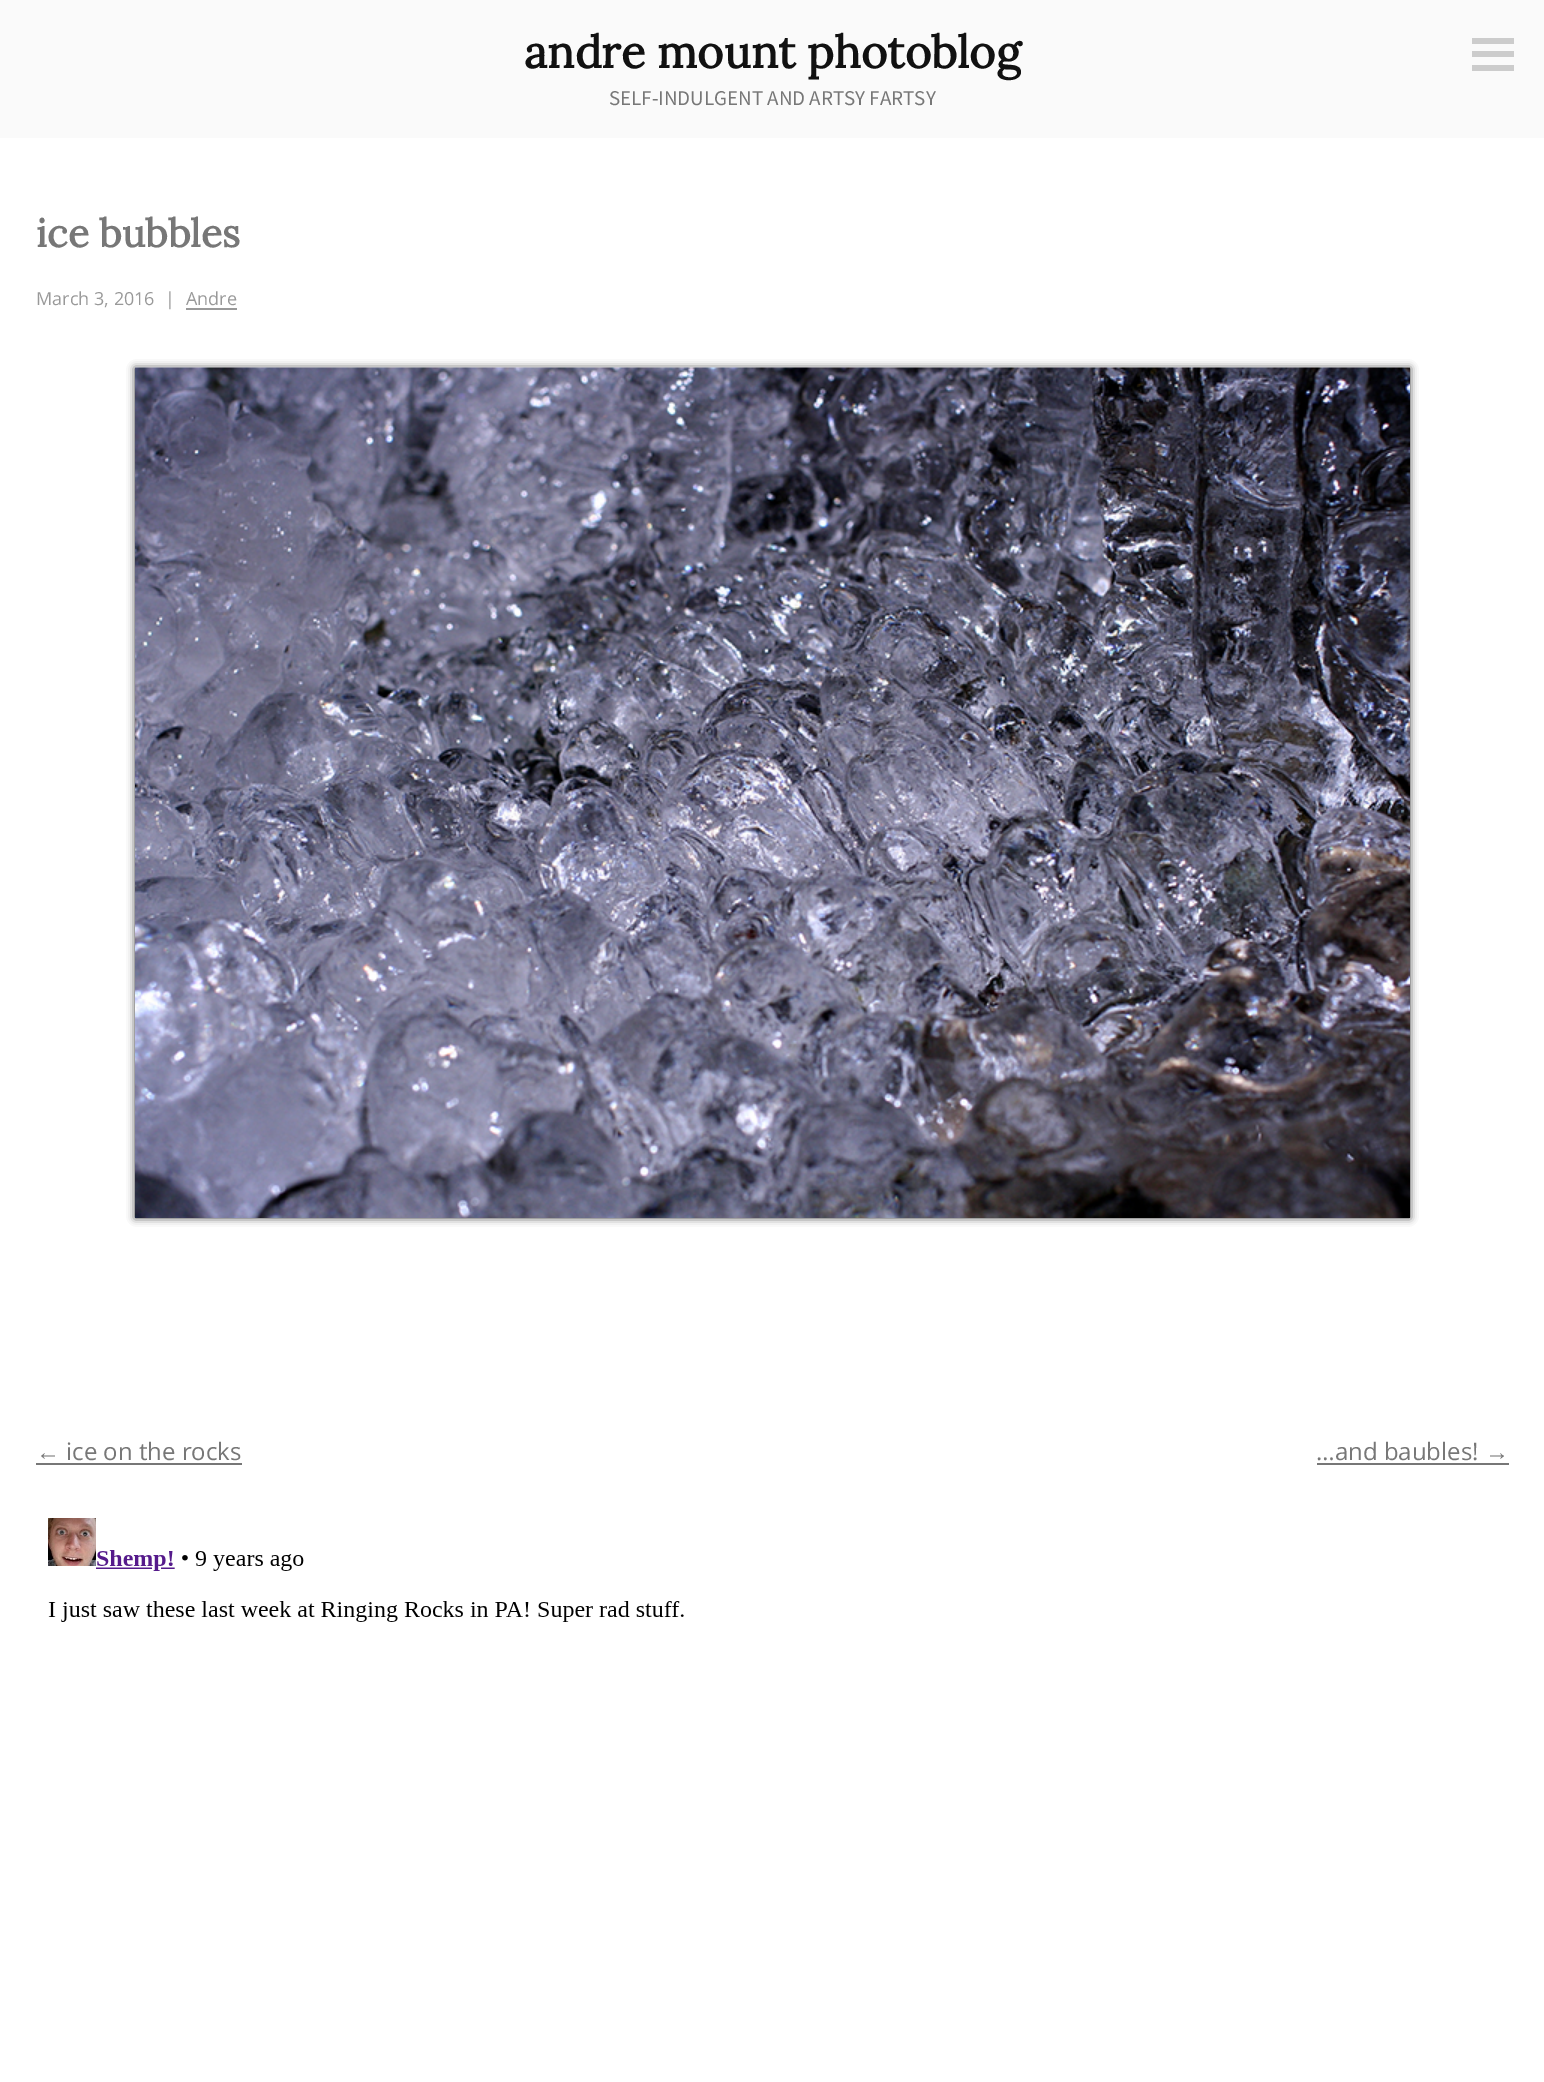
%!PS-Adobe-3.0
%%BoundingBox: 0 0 1544 2082
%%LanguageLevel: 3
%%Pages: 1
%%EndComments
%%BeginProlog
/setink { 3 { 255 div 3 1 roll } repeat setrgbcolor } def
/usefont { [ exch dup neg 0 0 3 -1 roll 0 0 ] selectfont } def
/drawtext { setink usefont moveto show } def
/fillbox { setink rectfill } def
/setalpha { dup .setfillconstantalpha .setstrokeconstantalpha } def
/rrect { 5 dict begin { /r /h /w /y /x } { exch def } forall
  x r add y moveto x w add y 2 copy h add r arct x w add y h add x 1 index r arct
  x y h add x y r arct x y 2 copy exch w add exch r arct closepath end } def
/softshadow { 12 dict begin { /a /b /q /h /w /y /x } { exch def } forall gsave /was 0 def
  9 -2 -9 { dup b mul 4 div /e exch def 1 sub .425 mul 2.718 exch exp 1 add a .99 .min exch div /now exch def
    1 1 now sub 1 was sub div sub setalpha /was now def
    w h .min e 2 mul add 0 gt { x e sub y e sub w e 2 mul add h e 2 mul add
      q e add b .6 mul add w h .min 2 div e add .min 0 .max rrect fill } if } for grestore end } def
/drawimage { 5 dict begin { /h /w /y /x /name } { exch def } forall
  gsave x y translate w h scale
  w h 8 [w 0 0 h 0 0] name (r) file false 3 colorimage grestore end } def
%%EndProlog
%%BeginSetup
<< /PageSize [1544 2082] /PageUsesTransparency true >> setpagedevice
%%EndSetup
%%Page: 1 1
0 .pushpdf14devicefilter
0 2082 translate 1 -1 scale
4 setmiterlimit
0 0 1544 2082 255 255 255 fillbox
0 0 1544 138 250 250 250 fillbox
(andre mount photoblog) 524 68 /Lora-Bold 45 17 17 17 drawtext
(SELF-INDULGENT AND ARTSY FARTSY) 609 105 /SourceSansPro-Regular 21 119 119 119 drawtext
1472 38 42 6 204 204 204 fillbox
1472 51 42 6 204 204 204 fillbox
1472 65 42 6 204 204 204 fillbox
(ice bubbles) 36 247 /Lora-Bold 39 119 119 119 drawtext
(March 3, 2016) 36 305 /OpenSans-Regular 18 153 153 153 drawtext
(|) 165 305 /OpenSans-Regular 18 153 153 153 drawtext
(Andre) 186 305 /OpenSans-Regular 18 153 153 153 drawtext
186 308 51 2 153 153 153 fillbox
0 0 0 setink
135 368 1275 850 0 4 0.75 softshadow
(assets/img1.rgb) 135 367 1275 851 drawimage
(←) 36 1460 /LiberationSans-Regular 24 119 119 119 drawtext
36 1463 206 2 119 119 119 fillbox
(ice on the rocks) 66 1460 /OpenSans-Regular 24 119 119 119 drawtext
(…and baubles!) 1316 1460 /OpenSans-Regular 24 119 119 119 drawtext
(→) 1485 1460 /LiberationSans-Regular 24 119 119 119 drawtext
1317 1463 192 2 119 119 119 fillbox
(assets/img2.rgb) 48 1518 636 104 drawimage
.poppdf14devicefilter showpage
%%EOF
